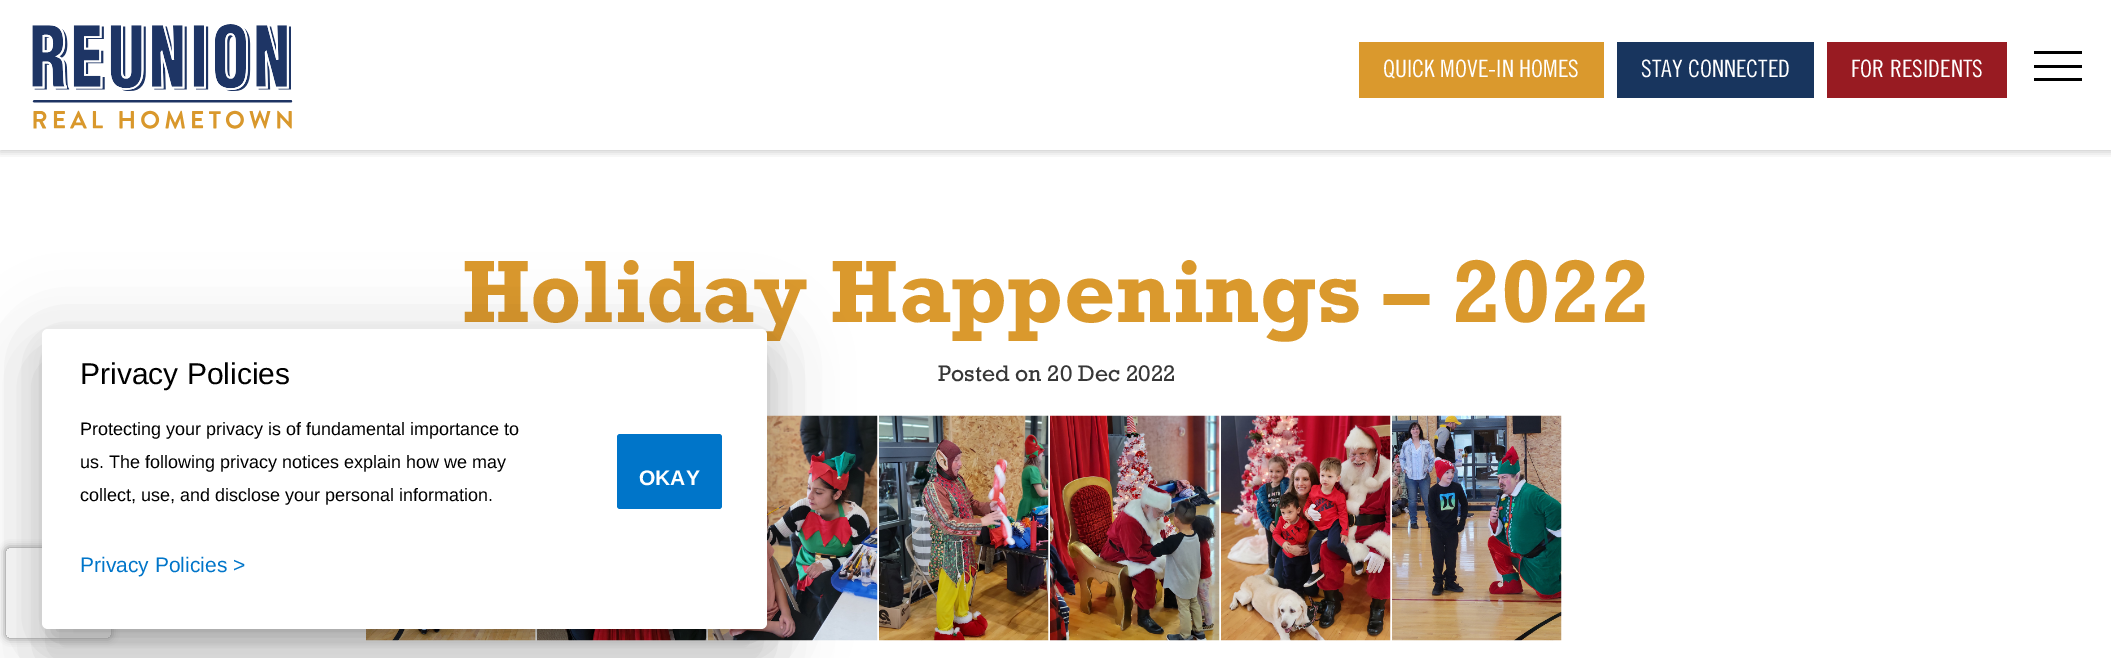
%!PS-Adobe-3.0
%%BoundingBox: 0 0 2111 658
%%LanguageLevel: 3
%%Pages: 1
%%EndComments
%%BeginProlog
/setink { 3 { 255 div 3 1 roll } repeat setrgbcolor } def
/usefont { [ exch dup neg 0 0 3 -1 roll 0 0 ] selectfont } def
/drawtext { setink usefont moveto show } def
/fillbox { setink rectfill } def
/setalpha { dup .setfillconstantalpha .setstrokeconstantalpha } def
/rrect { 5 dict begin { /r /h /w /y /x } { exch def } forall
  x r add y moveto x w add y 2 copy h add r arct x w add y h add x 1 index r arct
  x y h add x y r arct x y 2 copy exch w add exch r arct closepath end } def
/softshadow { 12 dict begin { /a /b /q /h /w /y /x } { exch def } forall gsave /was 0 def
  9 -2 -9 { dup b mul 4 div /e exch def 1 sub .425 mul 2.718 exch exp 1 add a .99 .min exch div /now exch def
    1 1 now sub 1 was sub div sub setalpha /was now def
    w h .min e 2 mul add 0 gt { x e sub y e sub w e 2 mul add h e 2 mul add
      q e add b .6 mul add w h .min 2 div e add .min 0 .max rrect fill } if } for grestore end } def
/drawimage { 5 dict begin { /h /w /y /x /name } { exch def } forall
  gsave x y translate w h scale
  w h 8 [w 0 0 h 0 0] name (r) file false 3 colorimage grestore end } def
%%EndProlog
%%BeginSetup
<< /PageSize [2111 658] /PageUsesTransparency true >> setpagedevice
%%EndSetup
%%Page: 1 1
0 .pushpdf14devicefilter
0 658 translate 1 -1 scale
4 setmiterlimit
0 0 2111 658 255 255 255 fillbox
gsave
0 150 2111 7 rectclip
0 0 0 setink
0 2 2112 150 0 4 0.2 softshadow
grestore
(assets/img1.rgb) 32 24 261 105 drawimage
1359 42 245 56 218 153 45 fillbox
(QUICK MOVE-IN HOMES) 1383 77 /TradeGothic-Regular 24 255 255 255 drawtext
1617 42 197 56 24 53 94 fillbox
(STAY CONNECTED) 1641 77 /TradeGothic-Regular 24 255 255 255 drawtext
1827 42 180 56 152 27 34 fillbox
(FOR RESIDENTS) 1851 77 /TradeGothic-Regular 24 255 255 255 drawtext
2034 51 48 3 0 0 0 fillbox
2034 65 48 3 0 0 0 fillbox
2034 78 48 3 0 0 0 fillbox
(Holiday Happenings – 2022) 462 322 /Rockwell-Bold 90 218 153 45 drawtext
(Posted on 20 Dec 2022) 938 381 /Rockwell-Regular 23 56 56 56 drawtext
(assets/img2.rgb) 366 629 170 12 drawimage
(assets/img3.rgb) 537 629 170 12 drawimage
(assets/img4.rgb) 708 415 170 226 drawimage
(assets/img5.rgb) 879 415 170 226 drawimage
(assets/img6.rgb) 1050 415 170 226 drawimage
(assets/img7.rgb) 1221 415 170 226 drawimage
(assets/img8.rgb) 1392 415 170 226 drawimage
0 0 0 setink
38 360 733 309 11 28.5 0.14 softshadow
30 330 749 324 18 34.5 0.12 softshadow
53 356 703 279 0 11 0.2 softshadow
gsave
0 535 moveto 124 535 lineto 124 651 lineto 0 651 lineto closepath 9 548 moveto 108 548 lineto 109.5 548 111 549.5 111 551 curveto 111 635 lineto 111 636.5 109.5 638 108 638 curveto 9 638 lineto 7.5 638 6 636.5 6 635 curveto 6 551 lineto 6 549.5 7.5 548 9 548 curveto closepath eoclip newpath
128 128 128 setink
6 548 105 90 3 4 1 softshadow
grestore
255 255 255 setink
42 329 725 300 6 rrect fill
(Privacy Policies) 80 384 /LiberationSans-Regular 30 0 0 0 drawtext
(Protecting your privacy is of fundamental importance to) 80 435 /LiberationSans-Regular 18 0 0 0 drawtext
(us. The following privacy notices explain how we may) 80 468 /LiberationSans-Regular 18 0 0 0 drawtext
(collect, use, and disclose your personal information.) 80 501 /LiberationSans-Regular 18 0 0 0 drawtext
0 117 201 setink
617 434 105 75 3 rrect fill
(OKAY) 639 485 /LiberationSans-Bold 21 255 255 255 drawtext
(Privacy Policies >) 80 572 /LiberationSans-Regular 21 0 117 201 drawtext
.poppdf14devicefilter showpage
%%EOF
